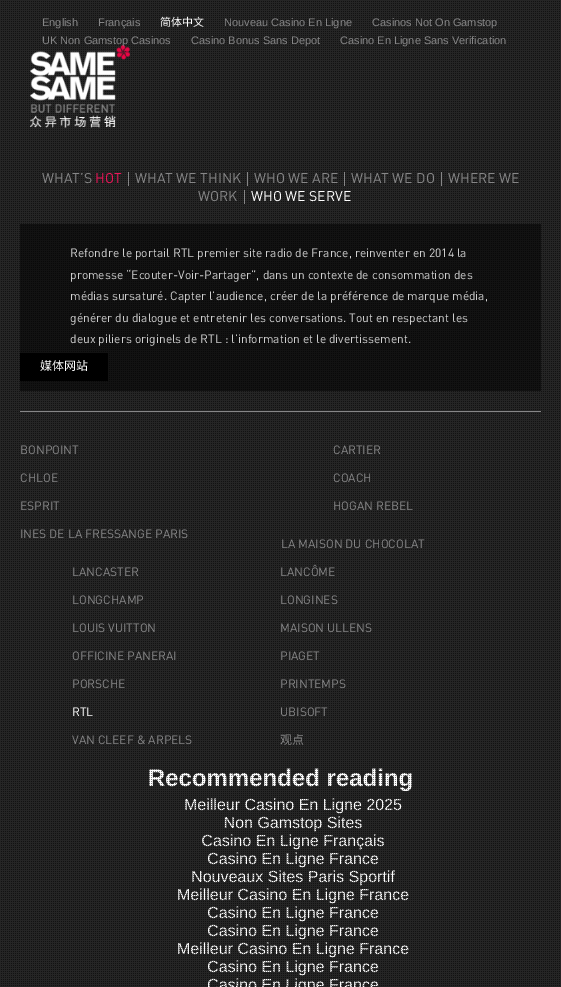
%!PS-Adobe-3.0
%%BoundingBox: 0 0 561 987
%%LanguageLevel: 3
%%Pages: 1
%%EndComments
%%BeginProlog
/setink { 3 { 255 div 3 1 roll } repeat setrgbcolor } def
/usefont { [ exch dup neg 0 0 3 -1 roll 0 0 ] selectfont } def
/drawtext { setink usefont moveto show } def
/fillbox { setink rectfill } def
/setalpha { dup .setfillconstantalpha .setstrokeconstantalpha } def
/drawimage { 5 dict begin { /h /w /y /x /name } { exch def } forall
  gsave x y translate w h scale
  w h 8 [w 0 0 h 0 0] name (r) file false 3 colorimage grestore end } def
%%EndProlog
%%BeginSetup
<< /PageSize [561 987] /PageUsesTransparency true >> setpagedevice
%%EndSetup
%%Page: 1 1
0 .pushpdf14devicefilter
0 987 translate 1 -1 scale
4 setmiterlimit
0 0 561 987 37 37 37 fillbox
(Recommended reading) 148 786 /LiberationSans-Bold 24 255 255 255 drawtext
(Meilleur Casino En Ligne 2025) 184 810 /LiberationSans-Regular 16 255 255 255 drawtext
(Non Gamstop Sites) 224 828 /LiberationSans-Regular 16 255 255 255 drawtext
(Casino En Ligne Français) 201 846 /LiberationSans-Regular 16 255 255 255 drawtext
(Casino En Ligne France) 207 864 /LiberationSans-Regular 16 255 255 255 drawtext
(Nouveaux Sites Paris Sportif) 191 882 /LiberationSans-Regular 16 255 255 255 drawtext
(Meilleur Casino En Ligne France) 177 900 /LiberationSans-Regular 16 255 255 255 drawtext
(Casino En Ligne France) 207 918 /LiberationSans-Regular 16 255 255 255 drawtext
(Casino En Ligne France) 207 936 /LiberationSans-Regular 16 255 255 255 drawtext
(Meilleur Casino En Ligne France) 177 954 /LiberationSans-Regular 16 255 255 255 drawtext
(Casino En Ligne France) 207 972 /LiberationSans-Regular 16 255 255 255 drawtext
(Casino En Ligne France) 207 990 /LiberationSans-Regular 16 255 255 255 drawtext
(assets/img1.rgb) 1 1 559 985 drawimage
(English) 42 26 /LiberationSans-Regular 11 134 134 135 drawtext
(Français) 98 26 /LiberationSans-Regular 11 134 134 135 drawtext
(简体中文) 160 26 /NotoSansCJKSC-Regular 11 255 255 255 drawtext
(Nouveau Casino En Ligne) 224 26 /LiberationSans-Regular 11 134 134 135 drawtext
(Casinos Not On Gamstop) 372 26 /LiberationSans-Regular 11 134 134 135 drawtext
(assets/img2.rgb) 30 45 100 83 drawimage
(UK Non Gamstop Casinos) 42 44 /LiberationSans-Regular 11 134 134 135 drawtext
(Casino Bonus Sans Depot) 191 44 /LiberationSans-Regular 11 134 134 135 drawtext
(Casino En Ligne Sans Verification) 340 44 /LiberationSans-Regular 11 134 134 135 drawtext
(WHAT’S) 42 183 /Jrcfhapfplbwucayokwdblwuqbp-Regular 14 134 134 135 drawtext
(HOT) 95 183 /Jrcfhapfplbwucayokwdblwuqbp-Regular 14 236 21 88 drawtext
(WHAT WE THINK) 135 183 /Jrcfhapfplbwucayokwdblwuqbp-Regular 14 134 134 135 drawtext
128 172 1 14 134 134 135 fillbox
(WHO WE ARE) 254 183 /Jrcfhapfplbwucayokwdblwuqbp-Regular 14 134 134 135 drawtext
247 172 1 14 134 134 135 fillbox
(WHAT WE DO) 351 183 /Jrcfhapfplbwucayokwdblwuqbp-Regular 14 134 134 135 drawtext
344 172 1 14 134 134 135 fillbox
(WHERE WE) 448 183 /Jrcfhapfplbwucayokwdblwuqbp-Regular 14 134 134 135 drawtext
441 172 1 14 134 134 135 fillbox
(WORK) 198 201 /Jrcfhapfplbwucayokwdblwuqbp-Regular 14 134 134 135 drawtext
(WHO WE SERVE) 251 201 /Jrcfhapfplbwucayokwdblwuqbp-Regular 14 255 255 255 drawtext
244 190 1 14 134 134 135 fillbox
0.5 setalpha
20 224 521 167 0 0 0 fillbox
1 setalpha
(Refondre le portail RTL premier site radio de France, reinventer en 2014 la) 70 257 /Jrcfhapfplbwucayokwdblwuqbp-Regular 12 207 207 207 drawtext
(promesse “Ecouter-Voir-Partager”, dans un contexte de consommation des) 70 279 /Jrcfhapfplbwucayokwdblwuqbp-Regular 12 207 207 207 drawtext
(médias sursaturé. Capter l’audience, créer de la préférence de marque média,) 70 300 /Jrcfhapfplbwucayokwdblwuqbp-Regular 12 207 207 207 drawtext
(générer du dialogue et entretenir les conversations. Tout en respectant les) 70 322 /Jrcfhapfplbwucayokwdblwuqbp-Regular 12 207 207 207 drawtext
(deux piliers originels de RTL : l’information et le divertissement.) 70 343 /Jrcfhapfplbwucayokwdblwuqbp-Regular 12 207 207 207 drawtext
20 353 88 28 0 0 0 fillbox
(媒体网站) 40 370 /NotoSansCJKSC-Regular 12 255 255 255 drawtext
20 411 521 1 134 134 135 fillbox
(BONPOINT) 20 454 /Jrcfhapfplbwucayokwdblwuqbp-Regular 12 134 134 135 drawtext
(CARTIER) 333 454 /Jrcfhapfplbwucayokwdblwuqbp-Regular 12 134 134 135 drawtext
(CHLOE) 20 482 /Jrcfhapfplbwucayokwdblwuqbp-Regular 12 134 134 135 drawtext
(COACH) 333 482 /Jrcfhapfplbwucayokwdblwuqbp-Regular 12 134 134 135 drawtext
(ESPRIT) 20 510 /Jrcfhapfplbwucayokwdblwuqbp-Regular 12 134 134 135 drawtext
(HOGAN REBEL) 333 510 /Jrcfhapfplbwucayokwdblwuqbp-Regular 12 134 134 135 drawtext
(INES DE LA FRESSANGE PARIS) 20 538 /Jrcfhapfplbwucayokwdblwuqbp-Regular 12 134 134 135 drawtext
(LA MAISON DU CHOCOLAT) 281 548 /Jrcfhapfplbwucayokwdblwuqbp-Regular 12 134 134 135 drawtext
(LANCASTER) 72 576 /Jrcfhapfplbwucayokwdblwuqbp-Regular 12 134 134 135 drawtext
(LANCÔME) 280 576 /Jrcfhapfplbwucayokwdblwuqbp-Regular 12 134 134 135 drawtext
(LONGCHAMP) 72 604 /Jrcfhapfplbwucayokwdblwuqbp-Regular 12 134 134 135 drawtext
(LONGINES) 280 604 /Jrcfhapfplbwucayokwdblwuqbp-Regular 12 134 134 135 drawtext
(LOUIS VUITTON) 72 632 /Jrcfhapfplbwucayokwdblwuqbp-Regular 12 134 134 135 drawtext
(MAISON ULLENS) 280 632 /Jrcfhapfplbwucayokwdblwuqbp-Regular 12 134 134 135 drawtext
(OFFICINE PANERAI) 72 660 /Jrcfhapfplbwucayokwdblwuqbp-Regular 12 134 134 135 drawtext
(PIAGET) 280 660 /Jrcfhapfplbwucayokwdblwuqbp-Regular 12 134 134 135 drawtext
(PORSCHE) 72 688 /Jrcfhapfplbwucayokwdblwuqbp-Regular 12 134 134 135 drawtext
(PRINTEMPS) 280 688 /Jrcfhapfplbwucayokwdblwuqbp-Regular 12 134 134 135 drawtext
(RTL) 72 716 /Jrcfhapfplbwucayokwdblwuqbp-Regular 12 255 255 255 drawtext
(UBISOFT) 280 716 /Jrcfhapfplbwucayokwdblwuqbp-Regular 12 134 134 135 drawtext
(VAN CLEEF & ARPELS) 72 744 /Jrcfhapfplbwucayokwdblwuqbp-Regular 12 134 134 135 drawtext
(观点) 280 744 /NotoSansCJKSC-Regular 12 134 134 135 drawtext
.poppdf14devicefilter showpage
%%EOF
